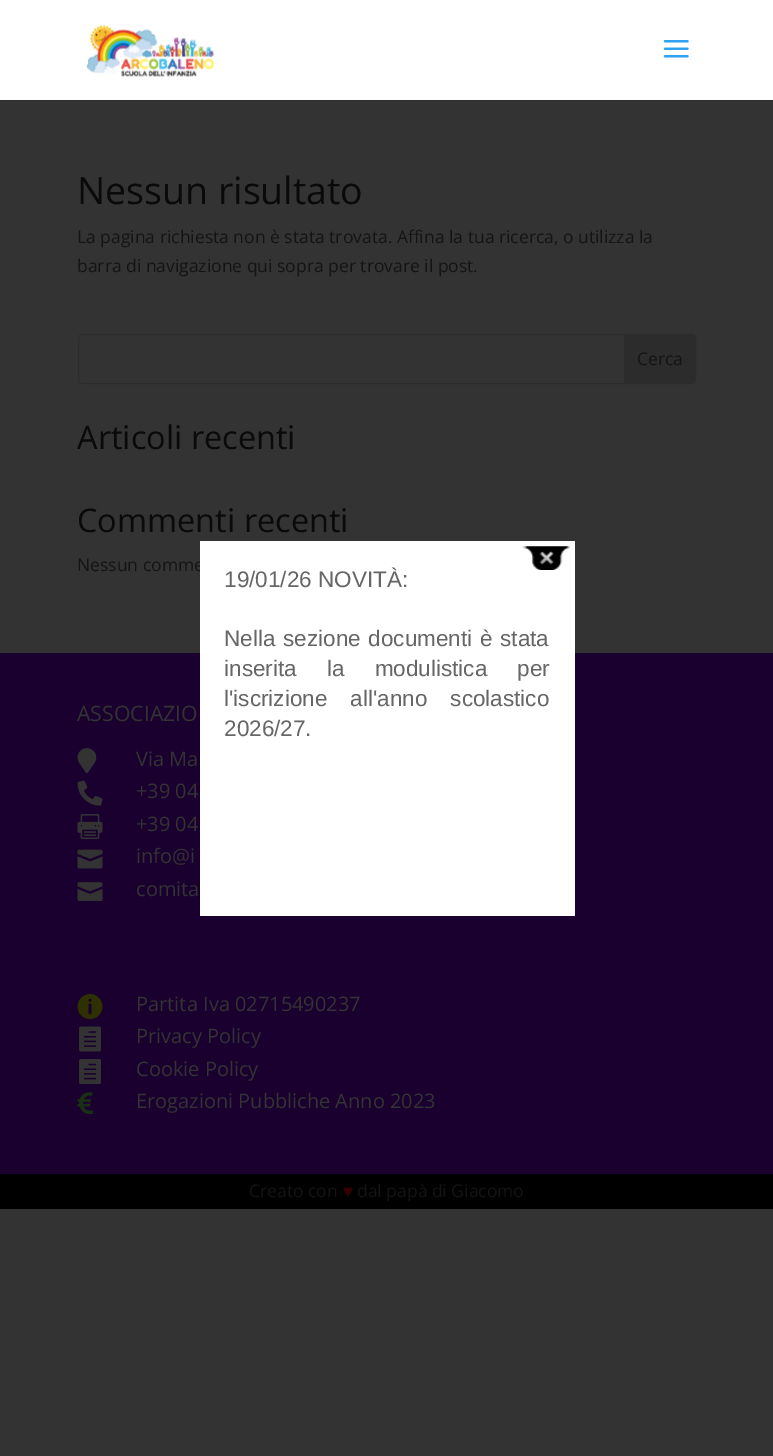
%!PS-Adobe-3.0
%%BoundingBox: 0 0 773 1456
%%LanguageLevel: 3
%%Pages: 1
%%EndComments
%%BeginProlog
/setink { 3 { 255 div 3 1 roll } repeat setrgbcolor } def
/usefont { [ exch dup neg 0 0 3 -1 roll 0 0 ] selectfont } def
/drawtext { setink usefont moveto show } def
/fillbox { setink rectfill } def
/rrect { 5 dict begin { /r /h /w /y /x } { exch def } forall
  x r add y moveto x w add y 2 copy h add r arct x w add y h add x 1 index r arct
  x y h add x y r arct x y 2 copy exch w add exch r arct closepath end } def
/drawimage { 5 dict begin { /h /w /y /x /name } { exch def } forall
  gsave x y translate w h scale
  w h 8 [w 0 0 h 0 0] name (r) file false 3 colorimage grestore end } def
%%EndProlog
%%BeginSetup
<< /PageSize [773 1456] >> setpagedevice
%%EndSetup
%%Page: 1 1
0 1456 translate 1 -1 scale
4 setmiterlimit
0 0 773 1456 51 51 51 fillbox
46 46 46 setink
0 100 moveto 0 101 lineto 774 101 lineto 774 1 lineto 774 100 lineto closepath fill
0 0 773 100 255 255 255 fillbox
(assets/img1.rgb) 86 25 129 52 drawimage
(assets/img2.rgb) 663 40 26 18 drawimage
(Nessun risultato) 77 204 /OpenSans-Regular 37.5 10 10 10 drawtext
(La pagina richiesta non è stata trovata. Affina la tua ricerca, o utilizza la) 77 243 /OpenSans-Regular 17.5 20 20 20 drawtext
(barra di navigazione qui sopra per trovare il post.) 77 272 /OpenSans-Regular 17.5 20 20 20 drawtext
44 44 44 setink
78.5 334.5 617 49 3.5 rrect stroke
624 334 moveto 692 334 lineto 694 334 696 336 696 338 curveto 696 380 lineto 696 382 694 384 692 384 curveto 624 384 lineto closepath fill
(Cerca) 637 365 /OpenSans-Regular 17.5 20 20 20 drawtext
(Articoli recenti) 77 449 /OpenSans-Regular 32.5 10 10 10 drawtext
(Commenti recenti) 77 532 /OpenSans-Regular 32.5 10 10 10 drawtext
(Nessun comme) 77 571 /OpenSans-Regular 17.5 20 20 20 drawtext
0 653 773 521 26 0 47 fillbox
(ASSOCIAZIO) 77 721 /OpenSans-Regular 21.25 51 51 51 drawtext
(assets/img3.rgb) 77 748 20 26 drawimage
(Via Ma) 136 766 /OpenSans-Regular 20 51 51 51 drawtext
(assets/img4.rgb) 77 780 26 26 drawimage
(+39 04) 136 798 /OpenSans-Regular 20 51 51 51 drawtext
(assets/img5.rgb) 77 814 26 26 drawimage
(+39 04) 136 831 /OpenSans-Regular 20 51 51 51 drawtext
(assets/img6.rgb) 77 849 26 20 drawimage
(info@i) 136 863 /OpenSans-Regular 20 51 51 51 drawtext
(assets/img7.rgb) 77 882 26 19 drawimage
(comita) 136 896 /OpenSans-Regular 20 51 51 51 drawtext
(assets/img8.rgb) 77 994 26 25 drawimage
(Partita Iva 02715490237) 136 1011 /OpenSans-Regular 20 51 51 51 drawtext
(assets/img9.rgb) 79 1026 22 26 drawimage
(Privacy Policy) 136 1043 /OpenSans-Regular 20 51 51 51 drawtext
(assets/img10.rgb) 79 1059 22 26 drawimage
(Cookie Policy) 136 1076 /OpenSans-Regular 20 51 51 51 drawtext
(assets/img11.rgb) 77 1092 17 23 drawimage
(Erogazioni Pubbliche Anno 2023) 136 1108 /OpenSans-Regular 20 51 51 51 drawtext
0 1174 773 35 0 0 0 fillbox
(Creato con) 249 1197 /OpenSans-Regular 17.5 20 20 20 drawtext
(♥) 343 1197 /LiberationSans-Regular 17.5 51 0 0 drawtext
(dal papà di Giacomo) 357 1197 /OpenSans-Regular 17.5 20 20 20 drawtext
200 541 375 375 255 255 255 fillbox
(assets/img12.rgb) 522 546 49 24 drawimage
(19/01/26 NOVITÀ:) 224 587 /LiberationSans-Regular 22.5 102 102 102 drawtext
224 646 moveto 1.5 0 32 (Nella sezione documenti è stata) widthshow
224 676 moveto 24 0 32 (inserita la modulistica per) widthshow
224 706 moveto 17 0 32 (l'iscrizione all'anno scolastico) widthshow
(2026/27.) 224 736 /LiberationSans-Regular 22.5 102 102 102 drawtext
showpage
%%EOF
